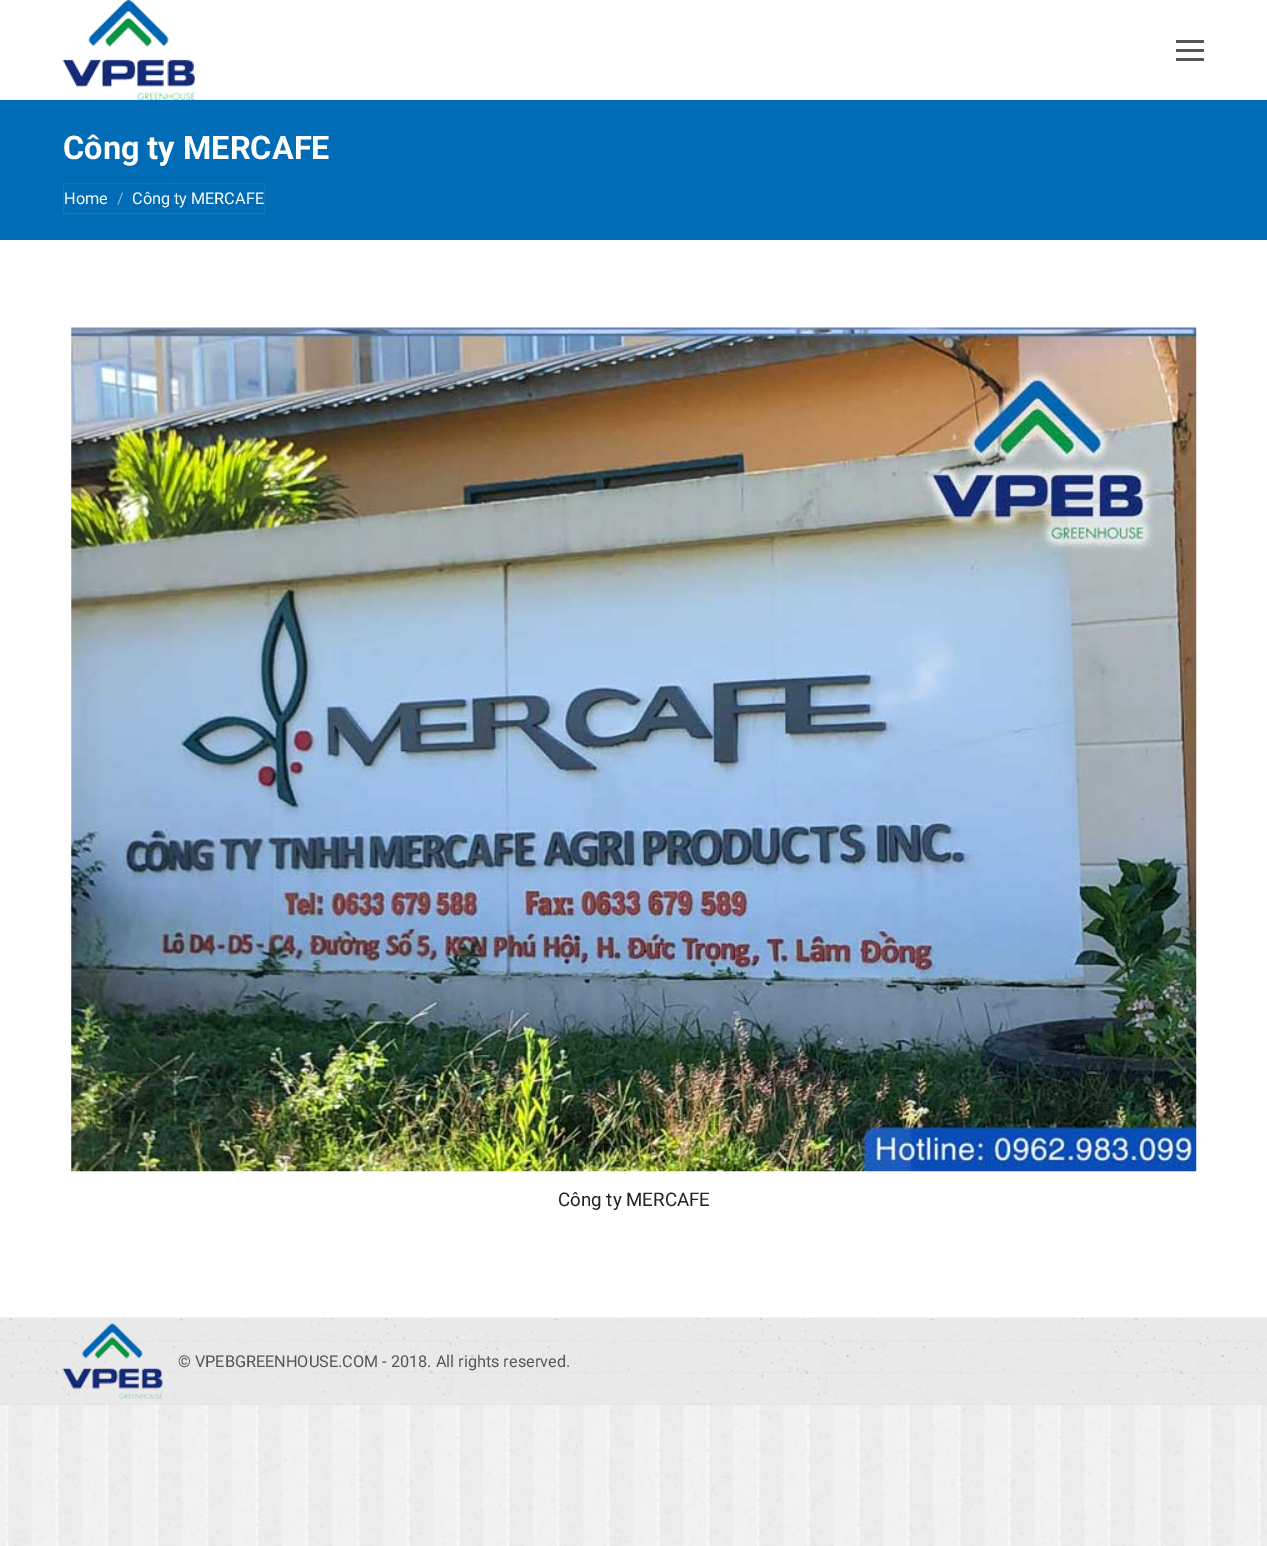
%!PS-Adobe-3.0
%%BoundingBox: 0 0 1267 1546
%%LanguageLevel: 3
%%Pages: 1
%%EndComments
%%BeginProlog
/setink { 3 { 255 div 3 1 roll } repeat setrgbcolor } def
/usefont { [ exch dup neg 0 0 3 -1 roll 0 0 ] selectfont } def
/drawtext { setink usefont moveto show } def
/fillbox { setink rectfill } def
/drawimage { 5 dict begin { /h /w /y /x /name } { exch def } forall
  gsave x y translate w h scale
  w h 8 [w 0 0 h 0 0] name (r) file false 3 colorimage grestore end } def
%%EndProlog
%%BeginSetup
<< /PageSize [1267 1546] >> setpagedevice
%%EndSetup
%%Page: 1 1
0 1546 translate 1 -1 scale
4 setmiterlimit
0 0 1267 1546 255 255 255 fillbox
(assets/img1.rgb) 0 1405 1267 141 drawimage
(assets/img2.rgb) 62 0 133 100 drawimage
1176 49 28 3 85 85 85 fillbox
1176 40 28 3 85 85 85 fillbox
1176 58 28 3 85 85 85 fillbox
0 100 1267 140 0 108 181 fillbox
(Công ty MERCAFE) 63 159 /Roboto-Bold 32.5 255 255 255 drawtext
29 118 180 setink
63.5 183.5 201 30 rectstroke
(Home) 64 204 /Roboto-Regular 16.25 255 255 255 drawtext
(/) 117 204 /Roboto-Regular 16.25 128 182 218 drawtext
(Công ty MERCAFE) 132 204 /Roboto-Regular 16.25 255 255 255 drawtext
(assets/img3.rgb) 71 327 1126 845 drawimage
(Công ty MERCAFE) 558 1206 /Roboto-Regular 18.75 34 34 34 drawtext
(assets/img4.rgb) 0 1317 1267 88 drawimage
(assets/img5.rgb) 62 1323 101 76 drawimage
(© VPEBGREENHOUSE.COM - 2018. All rights reserved.) 178 1367 /Roboto-Regular 16.25 85 85 85 drawtext
showpage
%%EOF
